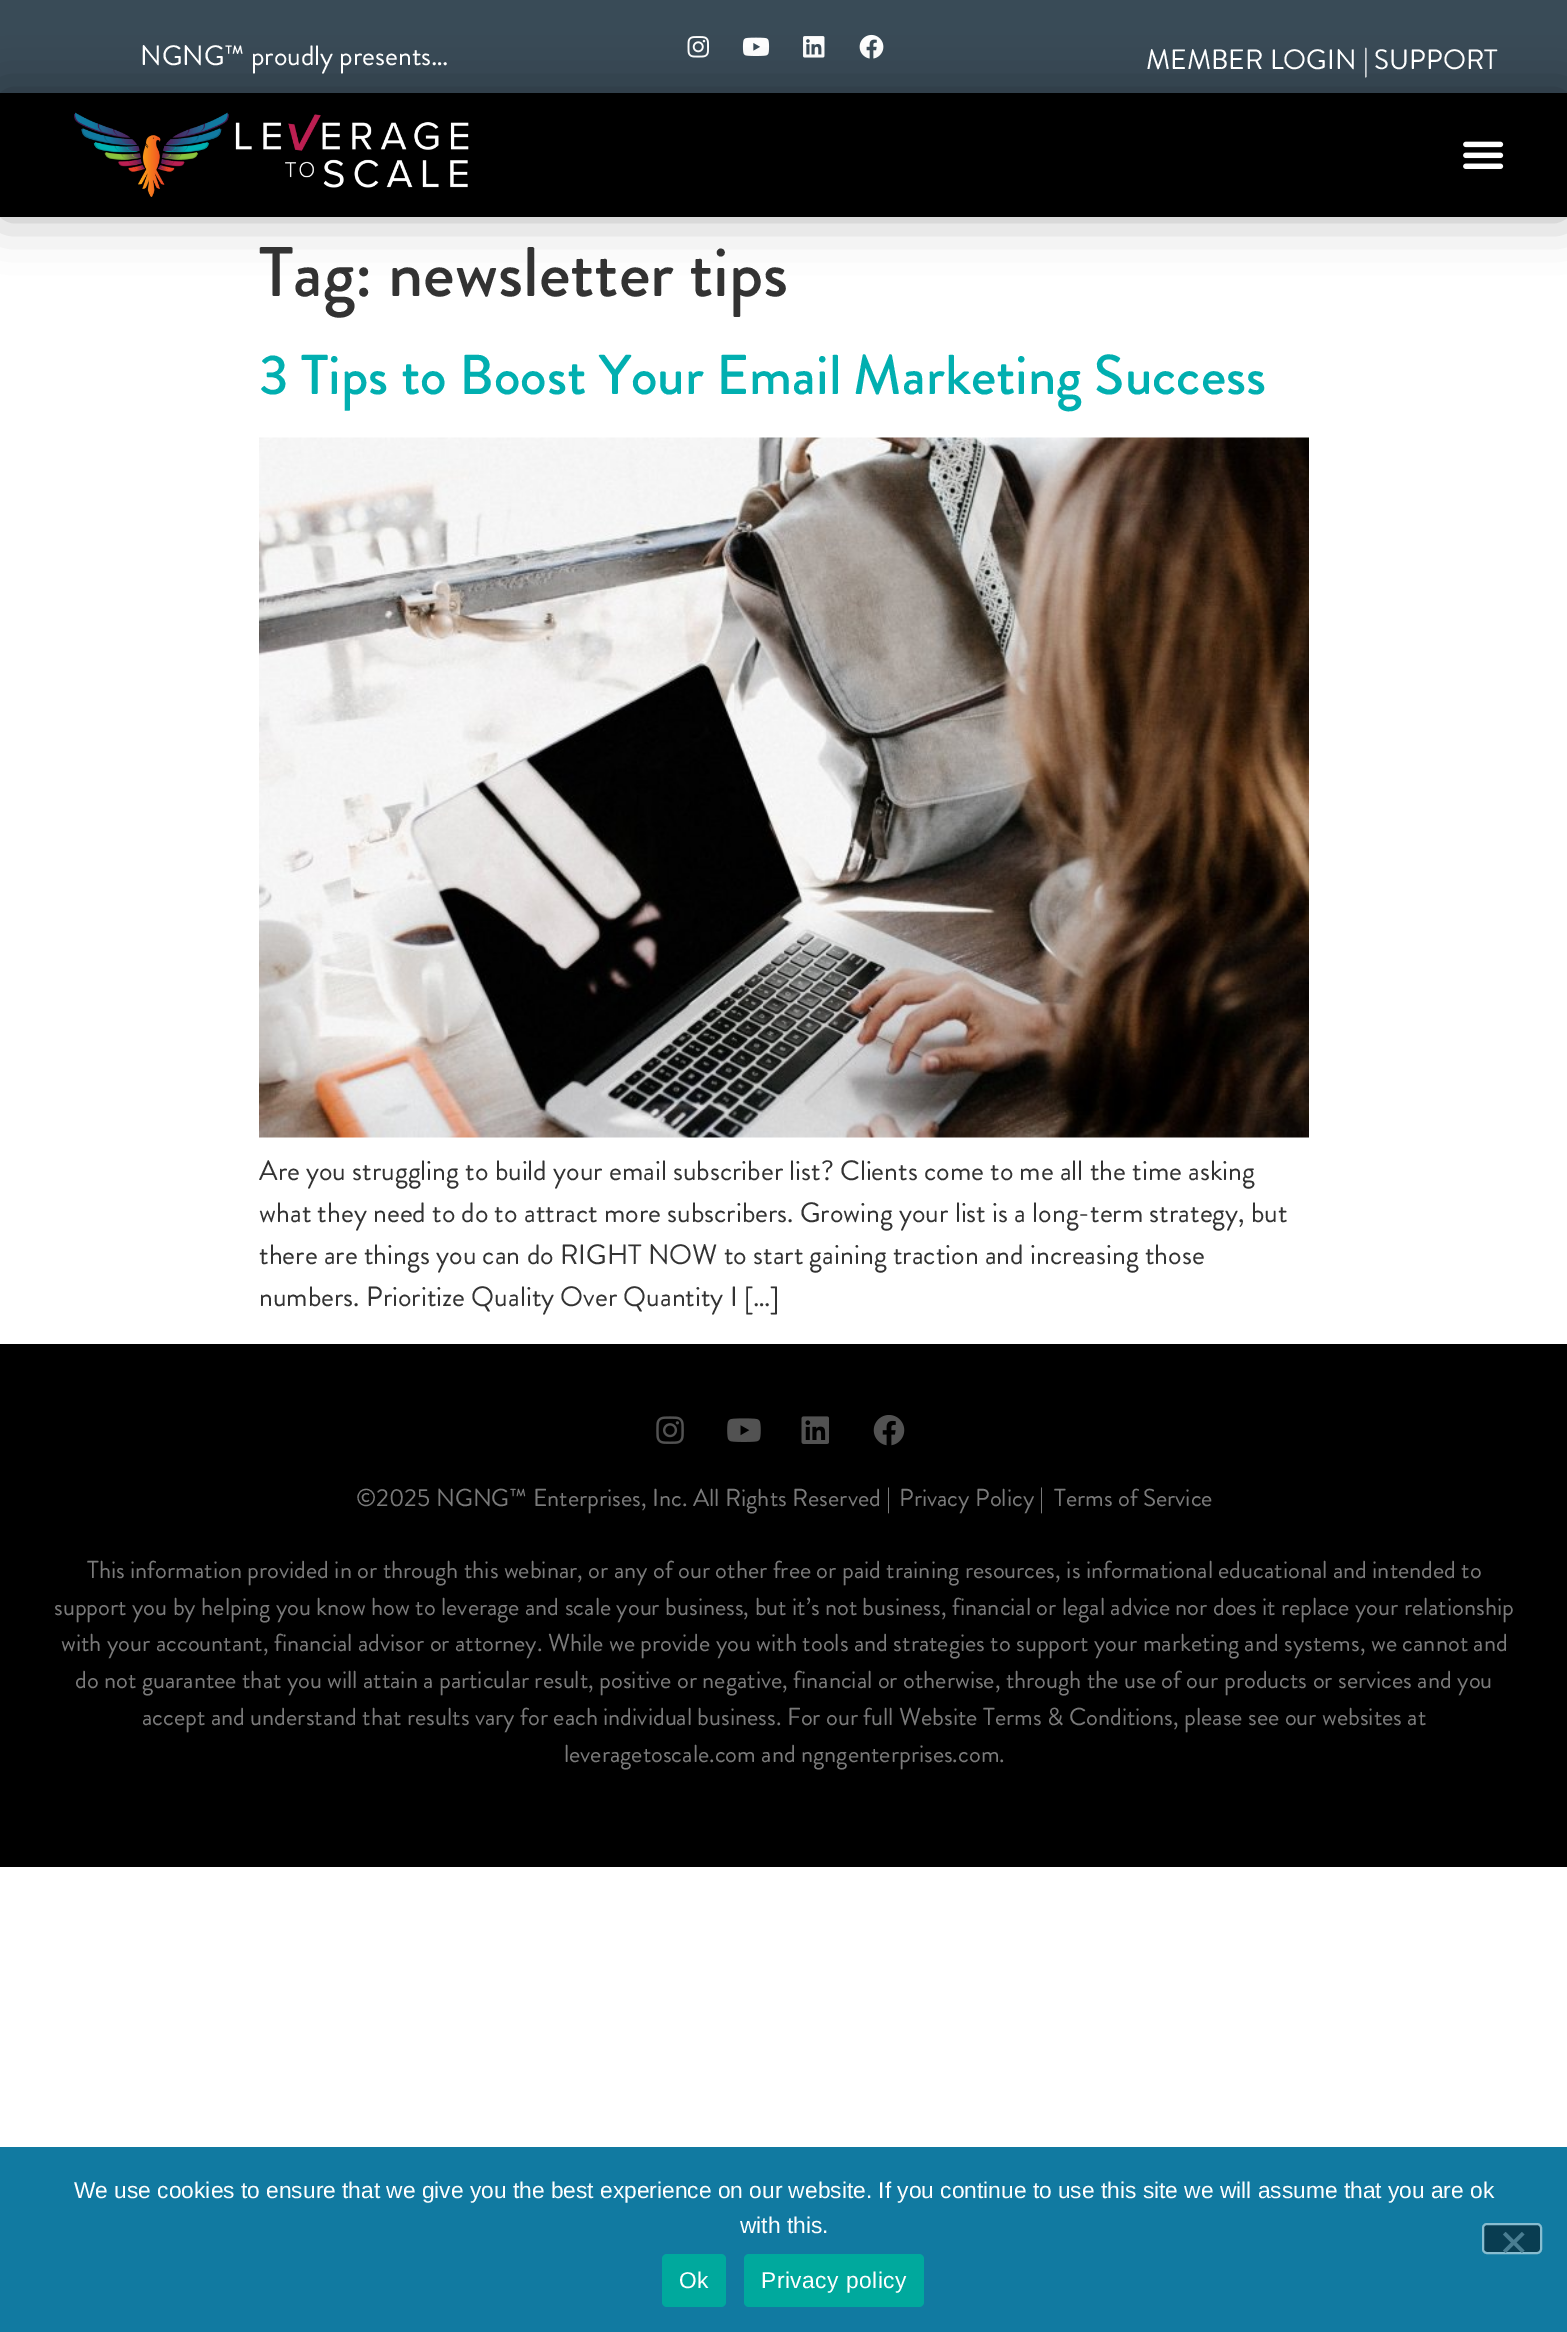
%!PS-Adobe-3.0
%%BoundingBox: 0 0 1567 2332
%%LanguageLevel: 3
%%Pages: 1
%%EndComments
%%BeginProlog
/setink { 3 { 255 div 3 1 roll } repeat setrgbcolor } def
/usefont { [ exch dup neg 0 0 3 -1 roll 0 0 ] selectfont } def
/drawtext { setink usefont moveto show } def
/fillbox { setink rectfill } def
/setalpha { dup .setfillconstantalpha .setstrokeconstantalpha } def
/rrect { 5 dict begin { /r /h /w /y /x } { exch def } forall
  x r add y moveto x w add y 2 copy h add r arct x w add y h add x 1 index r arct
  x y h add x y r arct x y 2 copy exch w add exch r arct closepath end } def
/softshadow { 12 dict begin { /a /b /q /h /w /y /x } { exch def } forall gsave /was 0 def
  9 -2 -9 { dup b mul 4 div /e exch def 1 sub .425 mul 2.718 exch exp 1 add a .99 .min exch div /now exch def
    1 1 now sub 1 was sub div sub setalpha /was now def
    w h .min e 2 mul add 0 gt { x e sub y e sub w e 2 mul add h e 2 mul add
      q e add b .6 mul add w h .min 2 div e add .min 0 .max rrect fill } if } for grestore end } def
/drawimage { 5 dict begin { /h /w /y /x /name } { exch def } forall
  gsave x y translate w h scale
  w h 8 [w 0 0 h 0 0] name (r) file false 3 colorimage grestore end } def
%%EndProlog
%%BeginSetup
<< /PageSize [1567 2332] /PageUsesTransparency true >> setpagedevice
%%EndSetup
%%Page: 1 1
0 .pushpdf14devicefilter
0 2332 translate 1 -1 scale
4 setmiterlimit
0 0 1567 2332 255 255 255 fillbox
0 93 1567 124 0 0 0 fillbox
0 0 1567 93 57 75 87 fillbox
(assets/img3.rgb) 687 36 22 22 drawimage
(assets/img4.rgb) 742 37 28 19 drawimage
(assets/img5.rgb) 803 36 22 22 drawimage
(assets/img6.rgb) 859 34 25 25 drawimage
gsave
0 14 moveto 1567 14 lineto 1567 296 lineto 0 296 lineto closepath 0 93 moveto 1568 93 lineto 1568 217 lineto 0 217 lineto closepath eoclip newpath
0 0 0 setink
0 93 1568 124 0 26 0.3 softshadow
grestore
(assets/img1.rgb) 74 112 395 85 drawimage
(assets/img2.rgb) 1463 141 41 28 drawimage
(NGNG™ proudly presents…) 140 65 /BrandonGrotesque-Regular 28 255 255 255 drawtext
(MEMBER LOGIN | SUPPORT) 1146 69 /BrandonGrotesque-Regular 28 255 255 255 drawtext
(Tag: newsletter tips) 259 296 /BrandonGrotesque-Medium 70 51 51 51 drawtext
(3 Tips to Boost Your Email Marketing Success) 259 394 /BrandonGrotesque-Medium 56 1 175 176 drawtext
(assets/img7.rgb) 259 437 1050 701 drawimage
(Are you struggling to build your email subscriber list? Clients come to me all the time asking) 259 1180 /BrandonGrotesque-Regular 28 51 51 51 drawtext
(what they need to do to attract more subscribers. Growing your list is a long-term strategy, but) 259 1222 /BrandonGrotesque-Regular 28 51 51 51 drawtext
(there are things you can do RIGHT NOW to start gaining traction and increasing those) 259 1264 /BrandonGrotesque-Regular 28 51 51 51 drawtext
(numbers. Prioritize Quality Over Quantity I […]) 259 1306 /BrandonGrotesque-Regular 28 51 51 51 drawtext
0 1344 1567 523 0 0 0 fillbox
(assets/img8.rgb) 656 1416 28 28 drawimage
(assets/img9.rgb) 727 1418 34 24 drawimage
(assets/img10.rgb) 801 1416 28 28 drawimage
(assets/img11.rgb) 873 1415 32 31 drawimage
(©2025 NGNG™ Enterprises, Inc. All Rights Reserved |) 356 1506 /BrandonGrotesque-Regular 24.5 122 122 122 drawtext
(Privacy Policy |) 899 1506 /BrandonGrotesque-Regular 24.5 122 122 122 drawtext
(Terms of Service) 1054 1506 /BrandonGrotesque-Regular 24.5 122 122 122 drawtext
(This information provided in or through this webinar, or any of our other free or paid training resources, is informational educational and intended to) 87 1578 /BrandonGrotesque-Regular 24.5 122 122 122 drawtext
(support you by helping you know how to leverage and scale your business, but it’s not business, financial or legal advice nor does it replace your relationship) 54 1615 /BrandonGrotesque-Regular 24.5 122 122 122 drawtext
(with your accountant, financial advisor or attorney. While we provide you with tools and strategies to support your marketing and systems, we cannot and) 61 1651 /BrandonGrotesque-Regular 24.5 122 122 122 drawtext
(do not guarantee that you will attain a particular result, positive or negative, financial or otherwise, through the use of our products or services and you) 75 1688 /BrandonGrotesque-Regular 24.5 122 122 122 drawtext
(accept and understand that results vary for each individual business. For our full Website Terms & Conditions, please see our websites at) 142 1725 /BrandonGrotesque-Regular 24.5 122 122 122 drawtext
(leveragetoscale.com and ngngenterprises.com.) 564 1762 /BrandonGrotesque-Regular 24.5 122 122 122 drawtext
0 2147 1567 185 17 122 161 fillbox
(We use cookies to ensure that we give you the best experience on our website. If you continue to use this site we will assume that you are ok) 74 2198 /LiberationSans-Regular 22.75 255 255 255 drawtext
(with this.) 740 2233 /LiberationSans-Regular 22.75 255 255 255 drawtext
9 61 81 setink
1483 2224 58 29 4 rrect gsave fill grestore
136 189 208 setink
2 setlinewidth
stroke
73 125 145 setink
1522 2232 moveto 1524.5 2234.5 lineto 1505.5 2253 lineto 1503 2250.5 lineto closepath fill
1503 2234.5 moveto 1505.5 2232 lineto 1524.5 2250.5 lineto 1522 2253 lineto closepath fill
0 169 157 setink
662 2254 64 53 5 rrect fill
255 255 255 setink
679 2288 moveto 0.5 0 (Ok) ashow
0 169 157 setink
744 2254 180 53 5 rrect fill
255 255 255 setink
761 2288 moveto 0.5 0 (Privacy policy) ashow
.poppdf14devicefilter showpage
%%EOF
